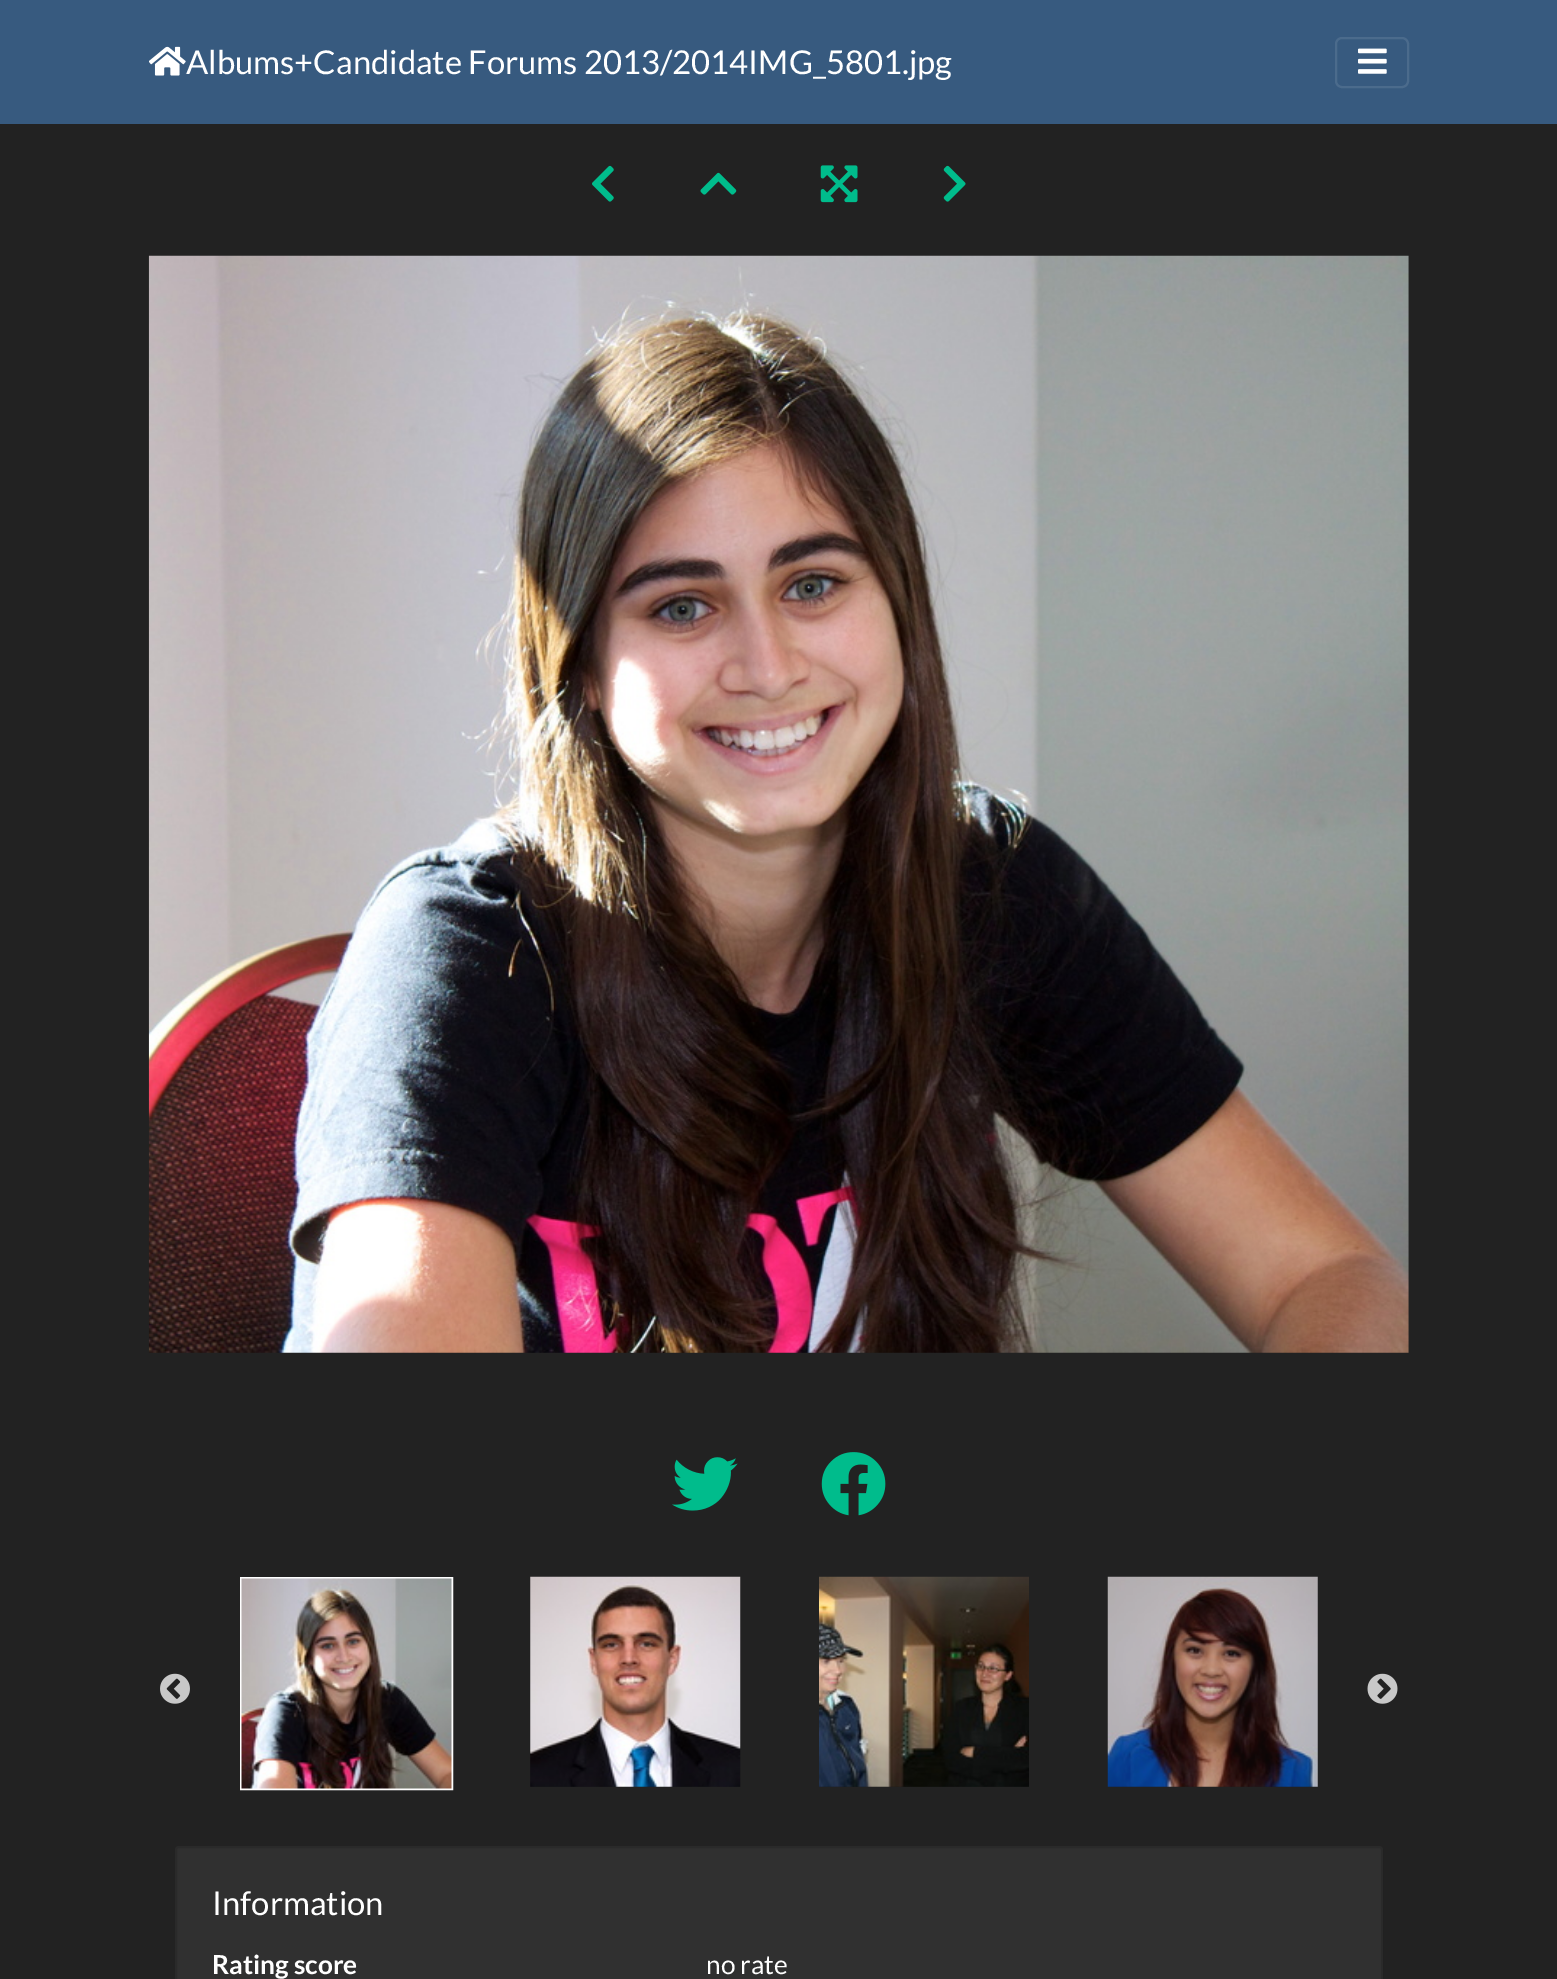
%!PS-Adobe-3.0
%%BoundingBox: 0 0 1557 1979
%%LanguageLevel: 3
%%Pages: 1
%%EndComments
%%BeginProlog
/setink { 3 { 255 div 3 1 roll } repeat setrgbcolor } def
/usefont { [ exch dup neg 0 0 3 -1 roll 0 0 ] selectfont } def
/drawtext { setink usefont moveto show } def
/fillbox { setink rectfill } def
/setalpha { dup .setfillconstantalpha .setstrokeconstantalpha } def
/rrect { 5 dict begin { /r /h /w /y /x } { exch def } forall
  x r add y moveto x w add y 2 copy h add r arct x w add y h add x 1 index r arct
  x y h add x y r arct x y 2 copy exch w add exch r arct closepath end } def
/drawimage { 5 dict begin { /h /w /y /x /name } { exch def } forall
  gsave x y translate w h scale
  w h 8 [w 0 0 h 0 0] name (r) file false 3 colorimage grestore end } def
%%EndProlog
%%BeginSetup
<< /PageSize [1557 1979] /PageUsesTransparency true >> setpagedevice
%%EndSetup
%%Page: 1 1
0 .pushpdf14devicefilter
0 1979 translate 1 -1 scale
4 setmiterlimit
0 0 1557 1979 34 34 34 fillbox
0 0 1557 124 55 90 127 fillbox
(Albums+Candidate Forums 2013/2014IMG_5801.jpg) 186 74 /Lato-Regular 32.8 255 255 255 drawtext
(assets/img1.rgb) 149 46 37 30 drawimage
75 107 140 setink
2 setlinewidth
1336 38 72 49 6 rrect stroke
(assets/img2.rgb) 1358 48 29 26 drawimage
(assets/img3.rgb) 592 165 22 37 drawimage
(assets/img4.rgb) 700 172 37 23 drawimage
(assets/img5.rgb) 820 165 38 38 drawimage
(assets/img6.rgb) 943 165 23 37 drawimage
(assets/img7.rgb) 148 255 1261 1098 drawimage
(assets/img8.rgb) 672 1457 66 54 drawimage
(assets/img9.rgb) 821 1452 65 64 drawimage
(assets/img10.rgb) 160 1673 30 31 drawimage
255 255 255 setink
241 1578 211 211 rectstroke
(assets/img11.rgb) 241 1578 211 211 drawimage
(assets/img12.rgb) 530 1576 211 211 drawimage
(assets/img13.rgb) 819 1576 210 211 drawimage
(assets/img14.rgb) 1107 1576 211 211 drawimage
(assets/img15.rgb) 1367 1673 31 31 drawimage
48 48 48 setink
175 1846 1208 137 4 rrect fill
0.12 setalpha
0 0 0 setink
176 1847 1206 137 3 rrect stroke
1 setalpha
(Information) 212 1915 /Lato-Regular 32.8 255 255 255 drawtext
(Rating score) 212 1974 /Lato-Bold 26.25 255 255 255 drawtext
(no rate) 706 1974 /Lato-Regular 26.25 255 255 255 drawtext
.poppdf14devicefilter showpage
%%EOF
